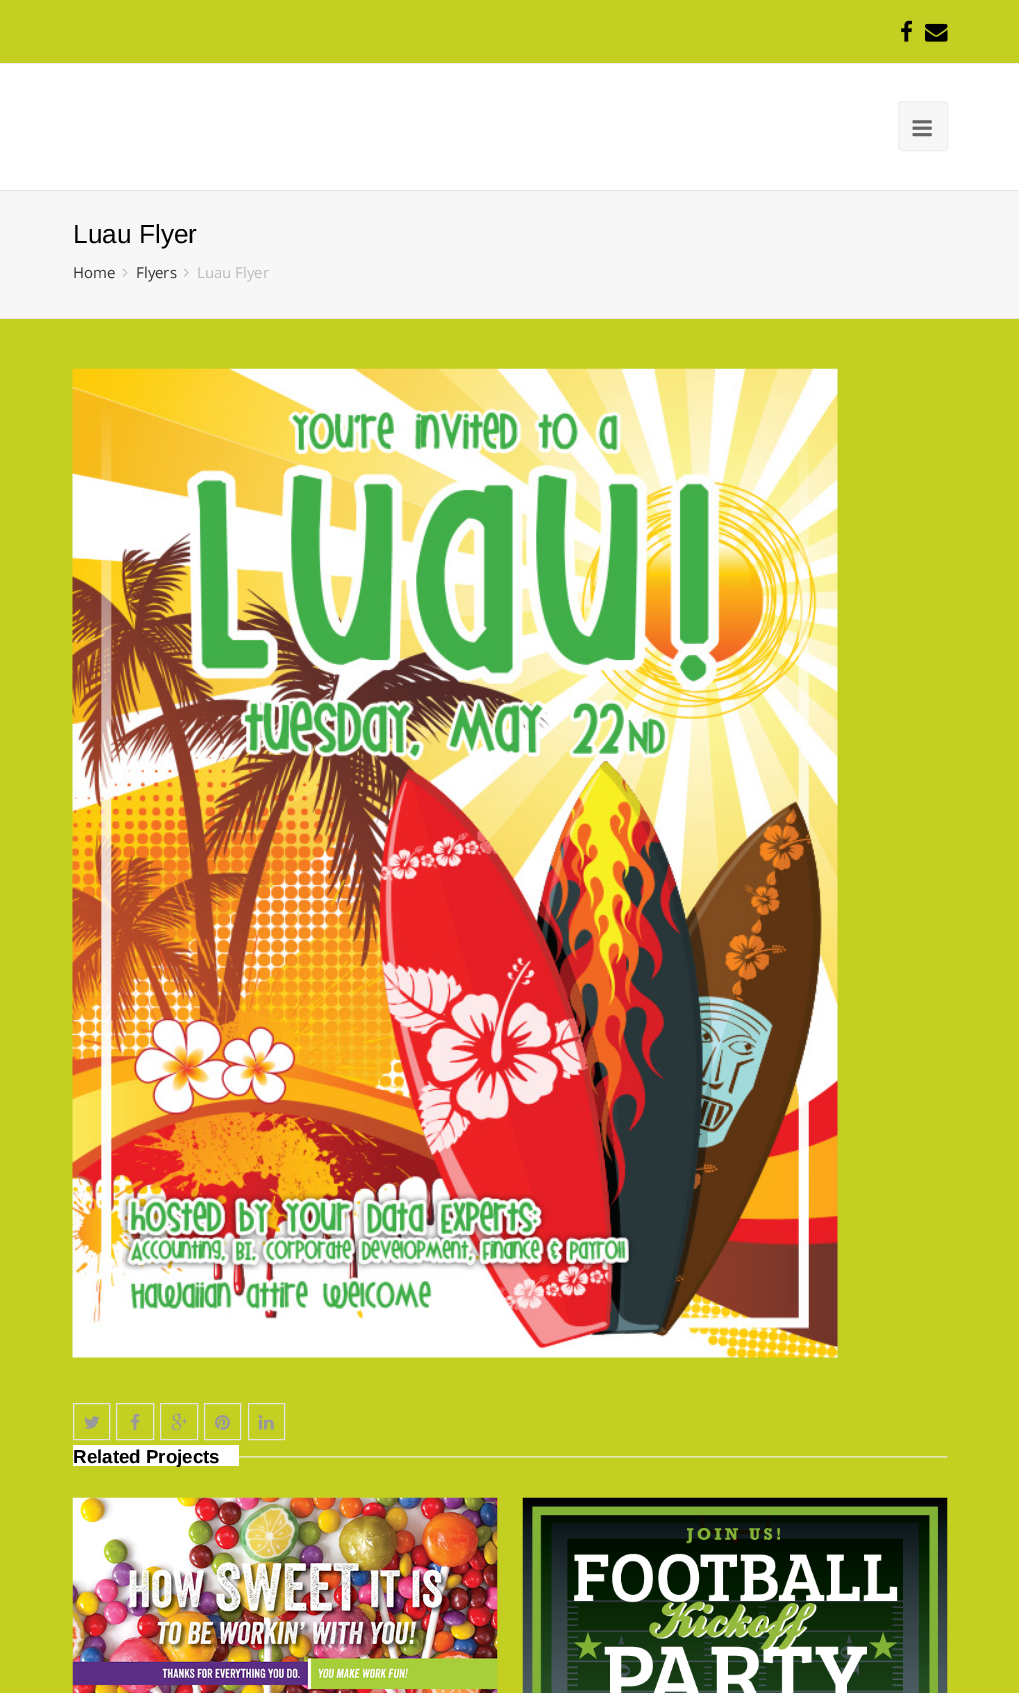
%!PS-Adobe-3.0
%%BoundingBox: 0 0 1019 1693
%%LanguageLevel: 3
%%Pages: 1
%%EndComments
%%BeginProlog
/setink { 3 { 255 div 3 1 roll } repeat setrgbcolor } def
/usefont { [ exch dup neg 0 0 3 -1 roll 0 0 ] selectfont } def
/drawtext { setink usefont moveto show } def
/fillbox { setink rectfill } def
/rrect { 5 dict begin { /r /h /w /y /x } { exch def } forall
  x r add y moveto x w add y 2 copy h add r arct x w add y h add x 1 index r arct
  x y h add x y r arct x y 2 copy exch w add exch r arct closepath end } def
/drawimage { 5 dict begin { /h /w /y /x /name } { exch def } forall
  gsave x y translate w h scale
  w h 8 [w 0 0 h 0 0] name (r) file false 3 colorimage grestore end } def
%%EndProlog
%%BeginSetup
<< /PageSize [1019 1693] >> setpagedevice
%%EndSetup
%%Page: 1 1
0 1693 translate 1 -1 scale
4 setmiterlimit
0 0 1019 1693 195 207 33 fillbox
0 63 1019 1 238 238 238 fillbox
(assets/img1.rgb) 901 20 12 22 drawimage
(assets/img2.rgb) 925 23 23 19 drawimage
0 64 1019 126 255 255 255 fillbox
247 247 247 setink
898.5 101.5 49 49 3.5 rrect gsave fill grestore
238 238 238 setink
stroke
(assets/img3.rgb) 912 120 20 17 drawimage
0 191 1019 127 247 247 247 fillbox
0 190 1019 1 228 228 228 fillbox
0 318 1019 1 228 228 228 fillbox
(Luau Flyer) 73 243 /LiberationSans-Regular 26.25 0 0 0 drawtext
(Home) 73 278 /OpenSans-Regular 15 51 51 51 drawtext
(assets/img4.rgb) 122 268 6 9 drawimage
(Flyers) 136 278 /OpenSans-Regular 15 51 51 51 drawtext
(assets/img5.rgb) 184 268 5 9 drawimage
(Luau Flyer) 197 278 /OpenSans-Regular 15 188 188 188 drawtext
(assets/img6.rgb) 72 368 766 990 drawimage
228 228 228 setink
73.5 1403.5 36 36 rectstroke
(assets/img7.rgb) 84 1416 16 13 drawimage
116.5 1403.5 37 36 rectstroke
(assets/img8.rgb) 130 1413 10 17 drawimage
160.5 1403.5 37 36 rectstroke
(assets/img9.rgb) 171 1413 16 17 drawimage
204.5 1403.5 36 36 rectstroke
(assets/img10.rgb) 215 1415 15 15 drawimage
248.5 1403.5 36 36 rectstroke
(assets/img11.rgb) 258 1415 16 15 drawimage
(assets/img12.rgb) 72 1456 876 2 drawimage
73 1445 166 21 255 255 255 fillbox
(Related Projects) 73 1463 /LiberationSans-Bold 18.75 0 0 0 drawtext
(assets/img13.rgb) 72 1497 426 196 drawimage
(assets/img14.rgb) 522 1497 426 196 drawimage
showpage
%%EOF
